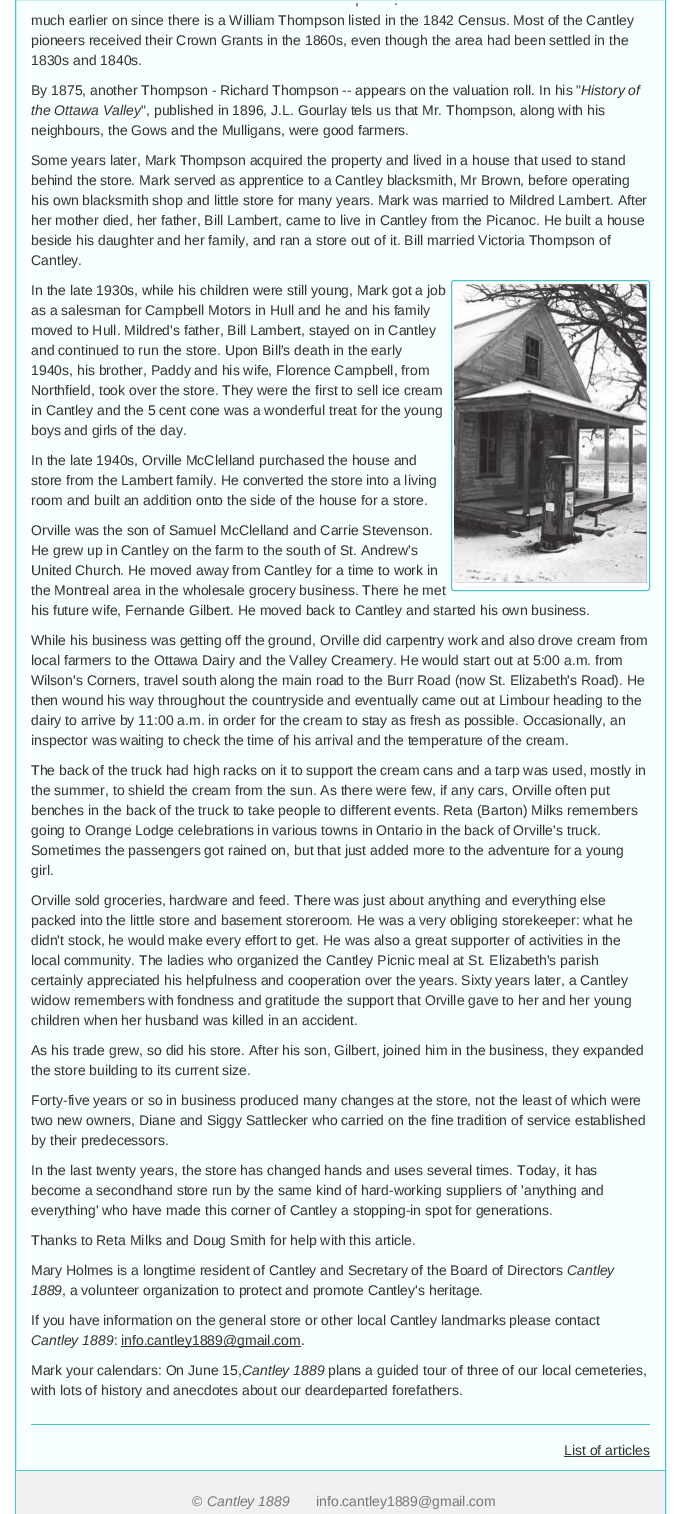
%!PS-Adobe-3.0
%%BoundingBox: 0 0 681 1514
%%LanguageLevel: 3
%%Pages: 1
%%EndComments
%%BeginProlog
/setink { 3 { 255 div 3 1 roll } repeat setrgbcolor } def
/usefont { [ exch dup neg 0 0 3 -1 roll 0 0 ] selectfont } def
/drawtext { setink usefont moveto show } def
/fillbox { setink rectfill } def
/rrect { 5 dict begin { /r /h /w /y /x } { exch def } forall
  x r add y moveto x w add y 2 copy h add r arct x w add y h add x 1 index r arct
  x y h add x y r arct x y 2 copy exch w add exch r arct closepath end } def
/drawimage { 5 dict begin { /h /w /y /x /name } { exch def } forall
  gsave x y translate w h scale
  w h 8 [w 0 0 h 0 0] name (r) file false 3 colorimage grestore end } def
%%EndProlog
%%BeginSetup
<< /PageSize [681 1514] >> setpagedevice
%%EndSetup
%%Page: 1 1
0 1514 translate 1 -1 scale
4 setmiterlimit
0 0 681 1514 255 255 255 fillbox
16 0 649 1470 248 255 255 fillbox
73 199 200 setink
15.5 -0.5 650 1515 rectstroke
(,) 355 5 /LiberationSans-Regular 14 51 51 51 drawtext
(.) 394 5 /LiberationSans-Regular 14 51 51 51 drawtext
(much earlier on since there is a William Thompson listed in the 1842 Census. Most of the Cantley) 31 25 /LiberationSans-Regular 14 51 51 51 drawtext
(pioneers received their Crown Grants in the 1860s, even though the area had been settled in the) 31 45 /LiberationSans-Regular 14 51 51 51 drawtext
(1830s and 1840s.) 31 65 /LiberationSans-Regular 14 51 51 51 drawtext
(By 1875, another Thompson - Richard Thompson -- appears on the valuation roll. In his ") 31 95 /LiberationSans-Regular 14 51 51 51 drawtext
(History of) 581 95 /LiberationSans-Italic 14 51 51 51 drawtext
(the Ottawa Valley) 31 115 /LiberationSans-Italic 14 51 51 51 drawtext
(", published in 1896, J.L. Gourlay tels us that Mr. Thompson, along with his) 141 115 /LiberationSans-Regular 14 51 51 51 drawtext
(neighbours, the Gows and the Mulligans, were good farmers.) 31 135 /LiberationSans-Regular 14 51 51 51 drawtext
(Some years later, Mark Thompson acquired the property and lived in a house that used to stand) 31 165 /LiberationSans-Regular 14 51 51 51 drawtext
(behind the store. Mark served as apprentice to a Cantley blacksmith, Mr Brown, before operating) 31 185 /LiberationSans-Regular 14 51 51 51 drawtext
(his own blacksmith shop and little store for many years. Mark was married to Mildred Lambert. After) 31 205 /LiberationSans-Regular 14 51 51 51 drawtext
(her mother died, her father, Bill Lambert, came to live in Cantley from the Picanoc. He built a house) 31 225 /LiberationSans-Regular 14 51 51 51 drawtext
(beside his daughter and her family, and ran a store out of it. Bill married Victoria Thompson of) 31 245 /LiberationSans-Regular 14 51 51 51 drawtext
(Cantley.) 31 265 /LiberationSans-Regular 14 51 51 51 drawtext
(In the late 1930s, while his children were still young, Mark got a job) 31 295 /LiberationSans-Regular 14 51 51 51 drawtext
(as a salesman for Campbell Motors in Hull and he and his family) 31 315 /LiberationSans-Regular 14 51 51 51 drawtext
(moved to Hull. Mildred's father, Bill Lambert, stayed on in Cantley) 31 335 /LiberationSans-Regular 14 51 51 51 drawtext
(and continued to run the store. Upon Bill's death in the early) 31 355 /LiberationSans-Regular 14 51 51 51 drawtext
(1940s, his brother, Paddy and his wife, Florence Campbell, from) 31 375 /LiberationSans-Regular 14 51 51 51 drawtext
(Northfield, took over the store. They were the first to sell ice cream) 31 395 /LiberationSans-Regular 14 51 51 51 drawtext
(in Cantley and the 5 cent cone was a wonderful treat for the young) 31 415 /LiberationSans-Regular 14 51 51 51 drawtext
(boys and girls of the day.) 31 435 /LiberationSans-Regular 14 51 51 51 drawtext
255 255 255 setink
451.5 280.5 198 310 2.5 rrect gsave fill grestore
73 199 200 setink
stroke
(assets/img1.rgb) 454 283 193 300 drawimage
(In the late 1940s, Orville McClelland purchased the house and) 31 465 /LiberationSans-Regular 14 51 51 51 drawtext
(store from the Lambert family. He converted the store into a living) 31 485 /LiberationSans-Regular 14 51 51 51 drawtext
(room and built an addition onto the side of the house for a store.) 31 505 /LiberationSans-Regular 14 51 51 51 drawtext
(Orville was the son of Samuel McClelland and Carrie Stevenson.) 31 535 /LiberationSans-Regular 14 51 51 51 drawtext
(He grew up in Cantley on the farm to the south of St. Andrew's) 31 555 /LiberationSans-Regular 14 51 51 51 drawtext
(United Church. He moved away from Cantley for a time to work in) 31 575 /LiberationSans-Regular 14 51 51 51 drawtext
(the Montreal area in the wholesale grocery business. There he met) 31 595 /LiberationSans-Regular 14 51 51 51 drawtext
(his future wife, Fernande Gilbert. He moved back to Cantley and started his own business.) 31 615 /LiberationSans-Regular 14 51 51 51 drawtext
(While his business was getting off the ground, Orville did carpentry work and also drove cream from) 31 645 /LiberationSans-Regular 14 51 51 51 drawtext
(local farmers to the Ottawa Dairy and the Valley Creamery. He would start out at 5:00 a.m. from) 31 665 /LiberationSans-Regular 14 51 51 51 drawtext
(Wilson's Corners, travel south along the main road to the Burr Road \(now St. Elizabeth's Road\). He) 31 685 /LiberationSans-Regular 14 51 51 51 drawtext
(then wound his way throughout the countryside and eventually came out at Limbour heading to the) 31 705 /LiberationSans-Regular 14 51 51 51 drawtext
(dairy to arrive by 11:00 a.m. in order for the cream to stay as fresh as possible. Occasionally, an) 31 725 /LiberationSans-Regular 14 51 51 51 drawtext
(inspector was waiting to check the time of his arrival and the temperature of the cream.) 31 745 /LiberationSans-Regular 14 51 51 51 drawtext
(The back of the truck had high racks on it to support the cream cans and a tarp was used, mostly in) 31 775 /LiberationSans-Regular 14 51 51 51 drawtext
(the summer, to shield the cream from the sun. As there were few, if any cars, Orville often put) 31 795 /LiberationSans-Regular 14 51 51 51 drawtext
(benches in the back of the truck to take people to different events. Reta \(Barton\) Milks remembers) 31 815 /LiberationSans-Regular 14 51 51 51 drawtext
(going to Orange Lodge celebrations in various towns in Ontario in the back of Orville's truck.) 31 835 /LiberationSans-Regular 14 51 51 51 drawtext
(Sometimes the passengers got rained on, but that just added more to the adventure for a young) 31 855 /LiberationSans-Regular 14 51 51 51 drawtext
(girl.) 31 875 /LiberationSans-Regular 14 51 51 51 drawtext
(Orville sold groceries, hardware and feed. There was just about anything and everything else) 31 905 /LiberationSans-Regular 14 51 51 51 drawtext
(packed into the little store and basement storeroom. He was a very obliging storekeeper: what he) 31 925 /LiberationSans-Regular 14 51 51 51 drawtext
(didn't stock, he would make every effort to get. He was also a great supporter of activities in the) 31 945 /LiberationSans-Regular 14 51 51 51 drawtext
(local community. The ladies who organized the Cantley Picnic meal at St. Elizabeth's parish) 31 965 /LiberationSans-Regular 14 51 51 51 drawtext
(certainly appreciated his helpfulness and cooperation over the years. Sixty years later, a Cantley) 31 985 /LiberationSans-Regular 14 51 51 51 drawtext
(widow remembers with fondness and gratitude the support that Orville gave to her and her young) 31 1005 /LiberationSans-Regular 14 51 51 51 drawtext
(children when her husband was killed in an accident.) 31 1025 /LiberationSans-Regular 14 51 51 51 drawtext
(As his trade grew, so did his store. After his son, Gilbert, joined him in the business, they expanded) 31 1055 /LiberationSans-Regular 14 51 51 51 drawtext
(the store building to its current size.) 31 1075 /LiberationSans-Regular 14 51 51 51 drawtext
(Forty-five years or so in business produced many changes at the store, not the least of which were) 31 1105 /LiberationSans-Regular 14 51 51 51 drawtext
(two new owners, Diane and Siggy Sattlecker who carried on the fine tradition of service established) 31 1125 /LiberationSans-Regular 14 51 51 51 drawtext
(by their predecessors.) 31 1145 /LiberationSans-Regular 14 51 51 51 drawtext
(In the last twenty years, the store has changed hands and uses several times. Today, it has) 31 1175 /LiberationSans-Regular 14 51 51 51 drawtext
(become a secondhand store run by the same kind of hard-working suppliers of 'anything and) 31 1195 /LiberationSans-Regular 14 51 51 51 drawtext
(everything' who have made this corner of Cantley a stopping-in spot for generations.) 31 1215 /LiberationSans-Regular 14 51 51 51 drawtext
(Thanks to Reta Milks and Doug Smith for help with this article.) 31 1245 /LiberationSans-Regular 14 51 51 51 drawtext
(Mary Holmes is a longtime resident of Cantley and Secretary of the Board of Directors) 31 1275 /LiberationSans-Regular 14 51 51 51 drawtext
(Cantley) 567 1275 /LiberationSans-Italic 14 51 51 51 drawtext
(1889) 31 1295 /LiberationSans-Italic 14 51 51 51 drawtext
(, a volunteer organization to protect and promote Cantley's heritage.) 62 1295 /LiberationSans-Regular 14 51 51 51 drawtext
(If you have information on the general store or other local Cantley landmarks please contact) 31 1325 /LiberationSans-Regular 14 51 51 51 drawtext
(Cantley 1889) 31 1345 /LiberationSans-Italic 14 51 51 51 drawtext
(:) 114 1345 /LiberationSans-Regular 14 51 51 51 drawtext
121 1346 180 1 51 51 51 fillbox
(info.cantley1889@gmail.com.) 121 1345 /LiberationSans-Regular 14 51 51 51 drawtext
(Mark your calendars: On June 15,) 31 1375 /LiberationSans-Regular 14 51 51 51 drawtext
(Cantley 1889) 242 1375 /LiberationSans-Italic 14 51 51 51 drawtext
(plans a guided tour of three of our local cemeteries,) 328 1375 /LiberationSans-Regular 14 51 51 51 drawtext
(with lots of history and anecdotes about our deardeparted forefathers.) 31 1395 /LiberationSans-Regular 14 51 51 51 drawtext
31 1424 619 1 73 199 200 fillbox
(List of articles) 564 1455 /LiberationSans-Regular 14 51 51 51 drawtext
564 1456 86 1 51 51 51 fillbox
16 1471 649 43 240 240 240 fillbox
16 1470 649 1 73 199 200 fillbox
(©) 192 1506 /LiberationSans-Regular 14 119 119 119 drawtext
(Cantley 1889) 207 1506 /LiberationSans-Italic 14 119 119 119 drawtext
(info.cantley1889@gmail.com) 316 1506 /LiberationSans-Regular 14 119 119 119 drawtext
showpage
%%EOF
